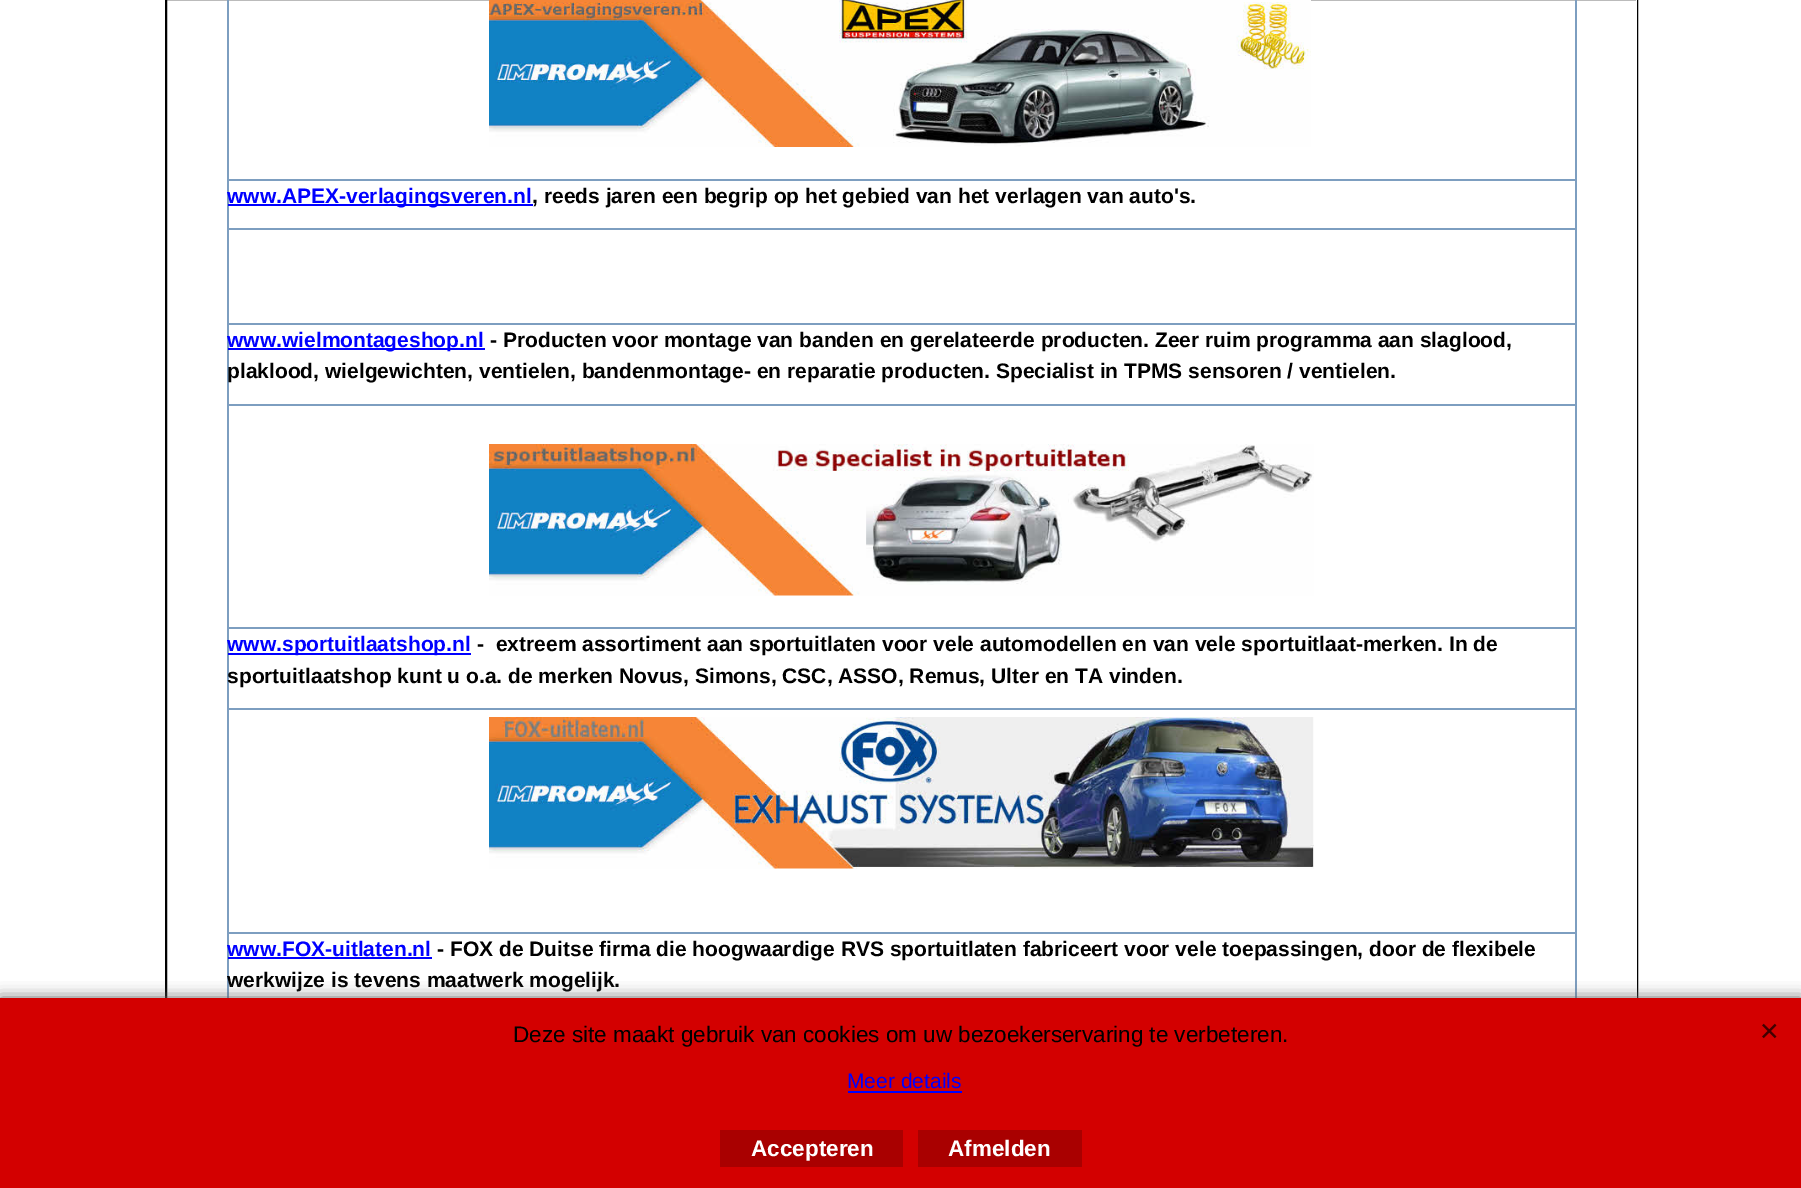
%!PS-Adobe-3.0
%%BoundingBox: 0 0 1801 1188
%%LanguageLevel: 3
%%Pages: 1
%%EndComments
%%BeginProlog
/setink { 3 { 255 div 3 1 roll } repeat setrgbcolor } def
/usefont { [ exch dup neg 0 0 3 -1 roll 0 0 ] selectfont } def
/drawtext { setink usefont moveto show } def
/fillbox { setink rectfill } def
/setalpha { dup .setfillconstantalpha .setstrokeconstantalpha } def
/rrect { 5 dict begin { /r /h /w /y /x } { exch def } forall
  x r add y moveto x w add y 2 copy h add r arct x w add y h add x 1 index r arct
  x y h add x y r arct x y 2 copy exch w add exch r arct closepath end } def
/softshadow { 12 dict begin { /a /b /q /h /w /y /x } { exch def } forall gsave /was 0 def
  9 -2 -9 { dup b mul 4 div /e exch def 1 sub .425 mul 2.718 exch exp 1 add a .99 .min exch div /now exch def
    1 1 now sub 1 was sub div sub setalpha /was now def
    w h .min e 2 mul add 0 gt { x e sub y e sub w e 2 mul add h e 2 mul add
      q e add b .6 mul add w h .min 2 div e add .min 0 .max rrect fill } if } for grestore end } def
/drawimage { 5 dict begin { /h /w /y /x /name } { exch def } forall
  gsave x y translate w h scale
  w h 8 [w 0 0 h 0 0] name (r) file false 3 colorimage grestore end } def
%%EndProlog
%%BeginSetup
<< /PageSize [1801 1188] /PageUsesTransparency true >> setpagedevice
%%EndSetup
%%Page: 1 1
0 .pushpdf14devicefilter
0 1188 translate 1 -1 scale
4 setmiterlimit
0 0 1801 1188 255 255 255 fillbox
0 0 0 setink
2 setlinewidth
166 -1 1471 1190 rectstroke
1636 0 1 998 255 255 255 fillbox
1575 0 2 998 125 158 192 fillbox
227 0 2 998 125 158 192 fillbox
(assets/img1.rgb) 489 0 822 147 drawimage
227 179 1350 2 125 158 192 fillbox
228 204 305 2 0 0 255 fillbox
(www.APEX-verlagingsveren.nl) 227 203 /LiberationSans-Bold 21 0 0 255 drawtext
(, reeds jaren een begrip op het gebied van het verlagen van auto's.) 532 203 /LiberationSans-Bold 21 0 0 0 drawtext
227 228 1350 2 125 158 192 fillbox
227 323 1350 2 125 158 192 fillbox
228 348 257 2 0 0 255 fillbox
(www.wielmontageshop.nl) 227 347 /LiberationSans-Bold 21 0 0 255 drawtext
(- Producten voor montage van banden en gerelateerde producten. Zeer ruim programma aan slaglood,) 490 347 /LiberationSans-Bold 21 0 0 0 drawtext
(plaklood, wielgewichten, ventielen, bandenmontage- en reparatie producten. Specialist in TPMS sensoren / ventielen.) 227 378 /LiberationSans-Bold 21 0 0 0 drawtext
227 404 1350 2 125 158 192 fillbox
(assets/img2.rgb) 489 444 825 152 drawimage
227 627 1350 2 125 158 192 fillbox
228 653 243 2 0 0 255 fillbox
(www.sportuitlaatshop.nl) 227 651 /LiberationSans-Bold 21 0 0 255 drawtext
(-  extreem assortiment aan sportuitlaten voor vele automodellen en van vele sportuitlaat-merken. In de) 477 651 /LiberationSans-Bold 21 0 0 0 drawtext
(sportuitlaatshop kunt u o.a. de merken Novus, Simons, CSC, ASSO, Remus, Ulter en TA vinden.) 227 683 /LiberationSans-Bold 21 0 0 0 drawtext
227 708 1350 2 125 158 192 fillbox
(assets/img3.rgb) 489 717 825 152 drawimage
227 932 1350 2 125 158 192 fillbox
(www.FOX-uitlaten.nl) 227 956 /LiberationSans-Bold 21 0 0 255 drawtext
228 957 204 2 0 0 255 fillbox
(- FOX de Duitse firma die hoogwaardige RVS sportuitlaten fabriceert voor vele toepassingen, door de flexibele) 437 956 /LiberationSans-Bold 21 0 0 0 drawtext
(werkwijze is tevens maatwerk mogelijk.) 227 987 /LiberationSans-Bold 21 0 0 0 drawtext
102 102 102 setink
0 998 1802 190 0 7.5 1 softshadow
0 998 1801 190 211 0 0 fillbox
(Deze site maakt gebruik van cookies om uw bezoekerservaring te verbeteren.) 513 1042 /LiberationSans-Regular 22.5 0 0 0 drawtext
(Meer details) 847 1088 /LiberationSans-Regular 21 0 0 255 drawtext
848 1091 114 2 0 0 255 fillbox
(assets/img4.rgb) 1762 1023 15 16 drawimage
720 1130 183 37 169 0 0 fillbox
(Accepteren) 751 1156 /LiberationSans-Bold 22.5 255 255 255 drawtext
918 1130 164 37 169 0 0 fillbox
(Afmelden) 948 1156 /LiberationSans-Bold 22.5 255 255 255 drawtext
.poppdf14devicefilter showpage
%%EOF
